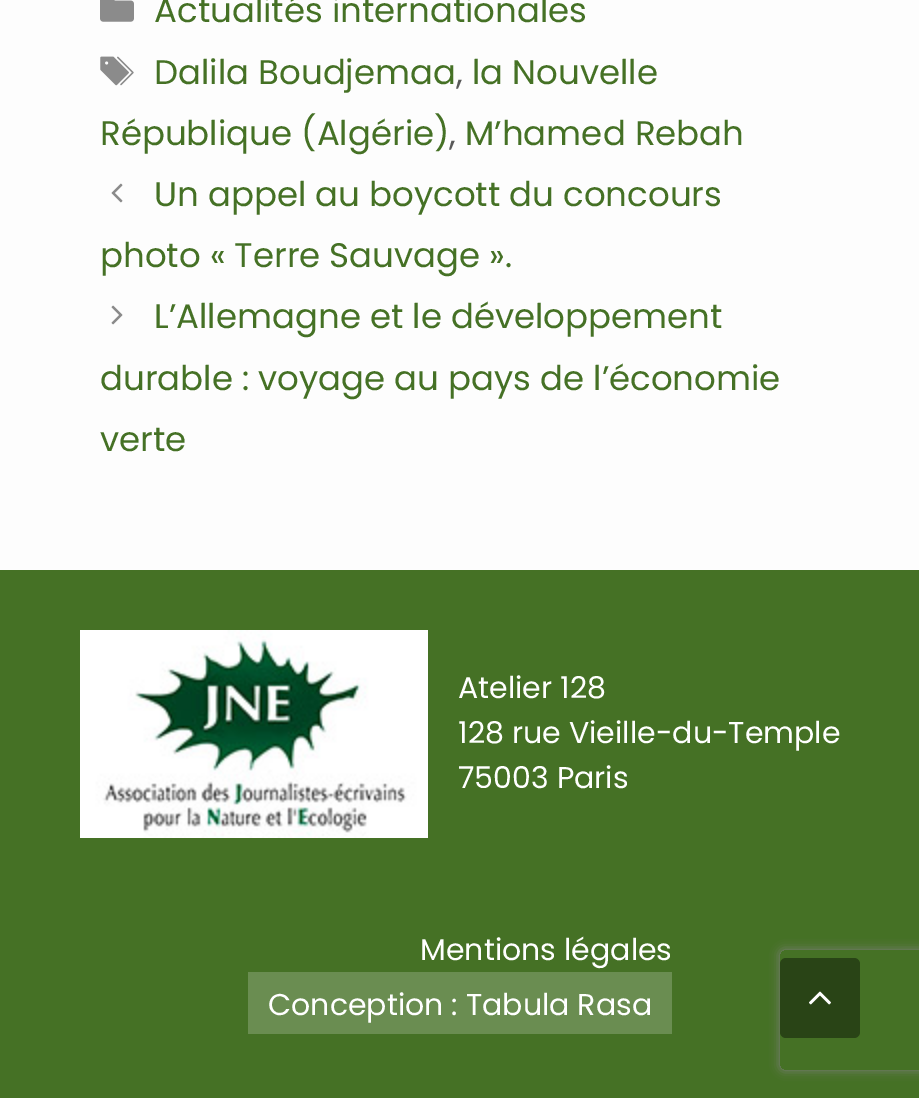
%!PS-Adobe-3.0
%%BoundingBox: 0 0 919 1098
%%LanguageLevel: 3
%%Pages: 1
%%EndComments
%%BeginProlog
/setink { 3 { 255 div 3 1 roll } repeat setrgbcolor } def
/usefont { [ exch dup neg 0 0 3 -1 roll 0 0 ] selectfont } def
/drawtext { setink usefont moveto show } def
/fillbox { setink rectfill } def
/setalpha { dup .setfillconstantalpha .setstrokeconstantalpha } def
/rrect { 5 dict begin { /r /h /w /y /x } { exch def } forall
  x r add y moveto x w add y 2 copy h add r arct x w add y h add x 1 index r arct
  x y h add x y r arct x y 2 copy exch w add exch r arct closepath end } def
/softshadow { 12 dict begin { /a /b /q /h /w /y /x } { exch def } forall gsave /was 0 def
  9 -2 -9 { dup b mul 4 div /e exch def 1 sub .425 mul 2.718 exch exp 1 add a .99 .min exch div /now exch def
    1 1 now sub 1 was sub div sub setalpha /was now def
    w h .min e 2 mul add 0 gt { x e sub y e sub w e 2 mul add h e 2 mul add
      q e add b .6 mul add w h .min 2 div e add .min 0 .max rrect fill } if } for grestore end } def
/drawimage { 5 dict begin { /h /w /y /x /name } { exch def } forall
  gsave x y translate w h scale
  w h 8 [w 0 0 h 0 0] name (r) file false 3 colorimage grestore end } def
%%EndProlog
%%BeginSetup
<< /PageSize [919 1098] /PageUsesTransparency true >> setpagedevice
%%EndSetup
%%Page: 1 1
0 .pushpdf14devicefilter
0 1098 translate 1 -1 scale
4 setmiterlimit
0 0 919 1098 253 253 253 fillbox
(assets/img1.rgb) 100 0 34 22 drawimage
(Actualités internationales) 154 22 /Poppins-Regular 34 69 113 37 drawtext
(assets/img2.rgb) 100 56 34 30 drawimage
(Dalila Boudjemaa) 154 84 /Poppins-Regular 34 69 113 37 drawtext
(,) 456 84 /Poppins-Regular 34 89 89 89 drawtext
(la Nouvelle) 472 84 /Poppins-Regular 34 69 113 37 drawtext
(République \(Algérie\)) 100 145 /Poppins-Regular 34 69 113 37 drawtext
(,) 449 145 /Poppins-Regular 34 89 89 89 drawtext
(M’hamed Rebah) 465 145 /Poppins-Regular 34 69 113 37 drawtext
(assets/img3.rgb) 111 183 12 20 drawimage
(Un appel au boycott du concours) 154 206 /Poppins-Regular 34 69 113 37 drawtext
(photo « Terre Sauvage ».) 100 267 /Poppins-Regular 34 69 113 37 drawtext
(assets/img4.rgb) 111 305 12 20 drawimage
(L’Allemagne et le développement) 154 328 /Poppins-Regular 34 69 113 37 drawtext
(durable : voyage au pays de l’économie) 100 390 /Poppins-Regular 34 69 113 37 drawtext
(verte) 100 451 /Poppins-Regular 34 69 113 37 drawtext
0 570 919 528 69 113 37 fillbox
(assets/img5.rgb) 80 630 348 208 drawimage
(Atelier 128) 458 698 /Poppins-Regular 30 255 255 255 drawtext
(128 rue Vieille-du-Temple) 458 743 /Poppins-Regular 30 255 255 255 drawtext
(75003 Paris) 458 788 /Poppins-Regular 30 255 255 255 drawtext
(Mentions légales) 420 960 /Poppins-Regular 30 255 255 255 drawtext
248 972 424 62 106 141 81 fillbox
(Conception : Tabula Rasa) 268 1015 /Poppins-Regular 30 255 255 255 drawtext
gsave
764 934 moveto 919 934 lineto 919 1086 lineto 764 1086 lineto closepath 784 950 moveto 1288 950 lineto 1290 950 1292 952 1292 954 curveto 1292 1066 lineto 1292 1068 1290 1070 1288 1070 curveto 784 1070 lineto 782 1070 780 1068 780 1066 curveto 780 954 lineto 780 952 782 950 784 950 curveto closepath eoclip newpath
128 128 128 setink
780 950 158 120 4 5 1 softshadow
grestore
41 68 22 setink
780 958 80 80 6 rrect fill
(assets/img6.rgb) 809 991 22 14 drawimage
.poppdf14devicefilter showpage
%%EOF
